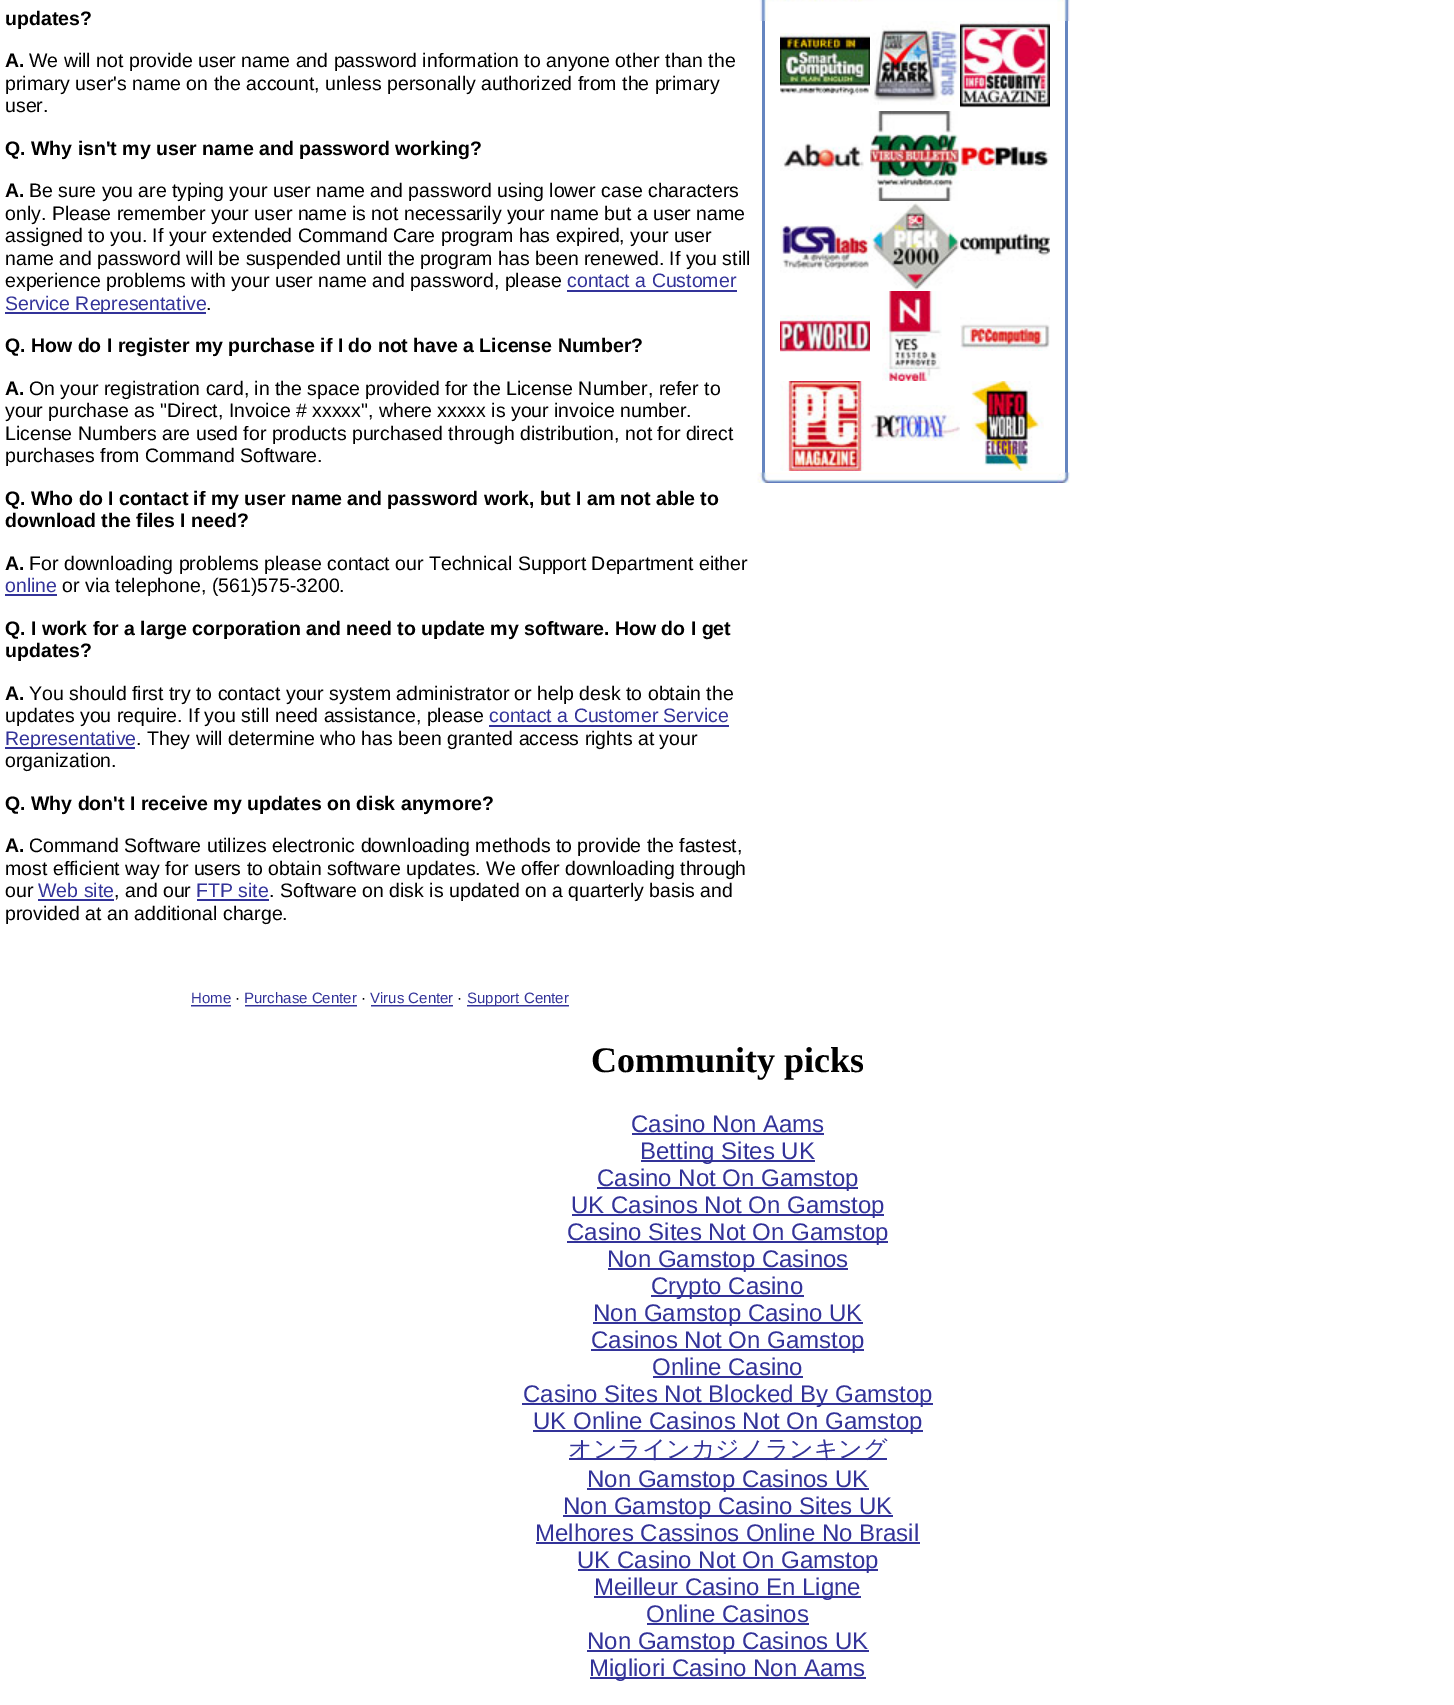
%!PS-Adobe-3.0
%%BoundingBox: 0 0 1454 1705
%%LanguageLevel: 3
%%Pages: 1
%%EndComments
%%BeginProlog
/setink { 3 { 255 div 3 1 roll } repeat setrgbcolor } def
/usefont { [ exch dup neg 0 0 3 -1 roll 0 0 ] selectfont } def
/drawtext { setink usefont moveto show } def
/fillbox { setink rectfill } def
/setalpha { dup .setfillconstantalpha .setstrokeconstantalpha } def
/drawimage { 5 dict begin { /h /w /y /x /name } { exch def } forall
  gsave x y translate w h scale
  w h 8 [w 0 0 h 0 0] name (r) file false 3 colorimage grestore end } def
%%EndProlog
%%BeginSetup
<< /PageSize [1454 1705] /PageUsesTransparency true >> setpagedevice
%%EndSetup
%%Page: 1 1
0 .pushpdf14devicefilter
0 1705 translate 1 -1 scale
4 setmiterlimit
0 0 1454 1705 255 255 255 fillbox
(updates?) 5 25 /LiberationSans-Bold 19.5 0 0 0 drawtext
(A.) 5 67 /LiberationSans-Bold 19.5 0 0 0 drawtext
(We will not provide user name and password information to anyone other than the) 29 67 /LiberationSans-Regular 19.5 0 0 0 drawtext
(primary user's name on the account, unless personally authorized from the primary) 5 90 /LiberationSans-Regular 19.5 0 0 0 drawtext
(user.) 5 112 /LiberationSans-Regular 19.5 0 0 0 drawtext
(Q. Why isn't my user name and password working?) 5 155 /LiberationSans-Bold 19.5 0 0 0 drawtext
(A.) 5 197 /LiberationSans-Bold 19.5 0 0 0 drawtext
(Be sure you are typing your user name and password using lower case characters) 29 197 /LiberationSans-Regular 19.5 0 0 0 drawtext
(only. Please remember your user name is not necessarily your name but a user name) 5 220 /LiberationSans-Regular 19.5 0 0 0 drawtext
(assigned to you. If your extended Command Care program has expired, your user) 5 242 /LiberationSans-Regular 19.5 0 0 0 drawtext
(name and password will be suspended until the program has been renewed. If you still) 5 265 /LiberationSans-Regular 19.5 0 0 0 drawtext
(experience problems with your user name and password, please) 5 287 /LiberationSans-Regular 19.5 0 0 0 drawtext
(contact a Customer) 567 287 /LiberationSans-Regular 19.5 51 51 153 drawtext
567 290 170 2 51 51 153 fillbox
5 312 201 2 51 51 153 fillbox
(Service Representative) 5 310 /LiberationSans-Regular 19.5 51 51 153 drawtext
(.) 206 310 /LiberationSans-Regular 19.5 0 0 0 drawtext
(Q. How do I register my purchase if I do not have a License Number?) 5 352 /LiberationSans-Bold 19.5 0 0 0 drawtext
(A.) 5 395 /LiberationSans-Bold 19.5 0 0 0 drawtext
(On your registration card, in the space provided for the License Number, refer to) 29 395 /LiberationSans-Regular 19.5 0 0 0 drawtext
(your purchase as "Direct, Invoice # xxxxx", where xxxxx is your invoice number.) 5 417 /LiberationSans-Regular 19.5 0 0 0 drawtext
(License Numbers are used for products purchased through distribution, not for direct) 5 440 /LiberationSans-Regular 19.5 0 0 0 drawtext
(purchases from Command Software.) 5 462 /LiberationSans-Regular 19.5 0 0 0 drawtext
(Q. Who do I contact if my user name and password work, but I am not able to) 5 505 /LiberationSans-Bold 19.5 0 0 0 drawtext
(download the files I need?) 5 527 /LiberationSans-Bold 19.5 0 0 0 drawtext
(A.) 5 570 /LiberationSans-Bold 19.5 0 0 0 drawtext
(For downloading problems please contact our Technical Support Department either) 29 570 /LiberationSans-Regular 19.5 0 0 0 drawtext
(online) 5 592 /LiberationSans-Regular 19.5 51 51 153 drawtext
5 594 52 2 51 51 153 fillbox
(or via telephone, \(561\)575-3200.) 62 592 /LiberationSans-Regular 19.5 0 0 0 drawtext
(Q. I work for a large corporation and need to update my software. How do I get) 5 635 /LiberationSans-Bold 19.5 0 0 0 drawtext
(updates?) 5 657 /LiberationSans-Bold 19.5 0 0 0 drawtext
(A.) 5 700 /LiberationSans-Bold 19.5 0 0 0 drawtext
(You should first try to contact your system administrator or help desk to obtain the) 29 700 /LiberationSans-Regular 19.5 0 0 0 drawtext
(updates you require. If you still need assistance, please) 5 722 /LiberationSans-Regular 19.5 0 0 0 drawtext
(contact a Customer Service) 489 722 /LiberationSans-Regular 19.5 51 51 153 drawtext
489 725 240 2 51 51 153 fillbox
5 747 130 2 51 51 153 fillbox
(Representative) 5 745 /LiberationSans-Regular 19.5 51 51 153 drawtext
(. They will determine who has been granted access rights at your) 136 745 /LiberationSans-Regular 19.5 0 0 0 drawtext
(organization.) 5 767 /LiberationSans-Regular 19.5 0 0 0 drawtext
(Q. Why don't I receive my updates on disk anymore?) 5 810 /LiberationSans-Bold 19.5 0 0 0 drawtext
(A.) 5 852 /LiberationSans-Bold 19.5 0 0 0 drawtext
(Command Software utilizes electronic downloading methods to provide the fastest,) 29 852 /LiberationSans-Regular 19.5 0 0 0 drawtext
(most efficient way for users to obtain software updates. We offer downloading through) 5 875 /LiberationSans-Regular 19.5 0 0 0 drawtext
(our) 5 897 /LiberationSans-Regular 19.5 0 0 0 drawtext
(Web site) 38 897 /LiberationSans-Regular 19.5 51 51 153 drawtext
(, and our) 114 897 /LiberationSans-Regular 19.5 0 0 0 drawtext
38 899 76 2 51 51 153 fillbox
(FTP site) 196 897 /LiberationSans-Regular 19.5 51 51 153 drawtext
(. Software on disk is updated on a quarterly basis and) 269 897 /LiberationSans-Regular 19.5 0 0 0 drawtext
197 899 72 2 51 51 153 fillbox
(provided at an additional charge.) 5 920 /LiberationSans-Regular 19.5 0 0 0 drawtext
(Home) 191 1003 /LiberationSans-Regular 15 51 51 153 drawtext
191 1005 40 2 51 51 153 fillbox
(·) 235 1003 /LiberationSans-Regular 15 0 0 0 drawtext
(Purchase Center) 244 1003 /LiberationSans-Regular 15 51 51 153 drawtext
245 1005 112 2 51 51 153 fillbox
(·) 361 1003 /LiberationSans-Regular 15 0 0 0 drawtext
(Virus Center) 370 1003 /LiberationSans-Regular 15 51 51 153 drawtext
371 1005 82 2 51 51 153 fillbox
(·) 457 1003 /LiberationSans-Regular 15 0 0 0 drawtext
467 1005 102 2 51 51 153 fillbox
(Support Center) 467 1003 /LiberationSans-Regular 15 51 51 153 drawtext
0.5 setalpha
191 1006 378 1 255 255 255 fillbox
1 setalpha
(assets/img1.rgb) 759 0 311 21 drawimage
762 21 3 452 101 133 192 fillbox
(assets/img2.rgb) 780 33 90 64 drawimage
(assets/img3.rgb) 870 21 90 84 drawimage
(assets/img4.rgb) 960 21 90 87 drawimage
(assets/img5.rgb) 780 143 84 28 drawimage
(assets/img6.rgb) 870 111 90 90 drawimage
(assets/img7.rgb) 960 146 90 25 drawimage
(assets/img8.rgb) 780 225 90 48 drawimage
(assets/img9.rgb) 870 201 90 89 drawimage
(assets/img10.rgb) 960 226 90 35 drawimage
(assets/img11.rgb) 780 315 90 37 drawimage
(assets/img12.rgb) 882 291 60 90 drawimage
(assets/img13.rgb) 960 317 90 34 drawimage
(assets/img14.rgb) 780 381 84 90 drawimage
(assets/img15.rgb) 870 405 90 36 drawimage
(assets/img16.rgb) 971 381 73 90 drawimage
1065 21 3 452 101 133 192 fillbox
(assets/img17.rgb) 757 472 313 11 drawimage
(Community picks) 591 1072 /LiberationSerif-Bold 36 0 0 0 drawtext
(Casino Non Aams) 631 1132 /LiberationSans-Regular 24 51 51 153 drawtext
632 1133 192 2 51 51 153 fillbox
641 1160 174 2 51 51 153 fillbox
(Betting Sites UK) 640 1159 /LiberationSans-Regular 24 51 51 153 drawtext
597 1187 261 2 51 51 153 fillbox
(Casino Not On Gamstop) 597 1186 /LiberationSans-Regular 24 51 51 153 drawtext
572 1214 312 2 51 51 153 fillbox
(UK Casinos Not On Gamstop) 571 1213 /LiberationSans-Regular 24 51 51 153 drawtext
567 1241 321 2 51 51 153 fillbox
(Casino Sites Not On Gamstop) 567 1240 /LiberationSans-Regular 24 51 51 153 drawtext
608 1268 240 2 51 51 153 fillbox
(Non Gamstop Casinos) 607 1267 /LiberationSans-Regular 24 51 51 153 drawtext
651 1295 153 2 51 51 153 fillbox
(Crypto Casino) 651 1294 /LiberationSans-Regular 24 51 51 153 drawtext
593 1322 270 2 51 51 153 fillbox
(Non Gamstop Casino UK) 593 1321 /LiberationSans-Regular 24 51 51 153 drawtext
591 1349 273 2 51 51 153 fillbox
(Casinos Not On Gamstop) 591 1348 /LiberationSans-Regular 24 51 51 153 drawtext
(Online Casino) 652 1375 /LiberationSans-Regular 24 51 51 153 drawtext
653 1376 150 2 51 51 153 fillbox
522 1403 411 2 51 51 153 fillbox
(Casino Sites Not Blocked By Gamstop) 523 1402 /LiberationSans-Regular 24 51 51 153 drawtext
533 1430 390 2 51 51 153 fillbox
(UK Online Casinos Not On Gamstop) 533 1429 /LiberationSans-Regular 24 51 51 153 drawtext
569 1458 318 2 51 51 153 fillbox
(オンラインカジノランキング) 568 1457 /WenQuanYiZenHei-Medium 24 51 51 153 drawtext
587 1488 282 2 51 51 153 fillbox
(Non Gamstop Casinos UK) 587 1487 /LiberationSans-Regular 24 51 51 153 drawtext
563 1515 330 2 51 51 153 fillbox
(Non Gamstop Casino Sites UK) 563 1514 /LiberationSans-Regular 24 51 51 153 drawtext
(Melhores Cassinos Online No Brasil) 535 1541 /LiberationSans-Regular 24 51 51 153 drawtext
536 1542 384 2 51 51 153 fillbox
578 1569 300 2 51 51 153 fillbox
(UK Casino Not On Gamstop) 577 1568 /LiberationSans-Regular 24 51 51 153 drawtext
594 1596 267 2 51 51 153 fillbox
(Meilleur Casino En Ligne) 594 1595 /LiberationSans-Regular 24 51 51 153 drawtext
(Online Casinos) 646 1622 /LiberationSans-Regular 24 51 51 153 drawtext
647 1623 162 2 51 51 153 fillbox
587 1650 282 2 51 51 153 fillbox
(Non Gamstop Casinos UK) 587 1649 /LiberationSans-Regular 24 51 51 153 drawtext
590 1677 276 2 51 51 153 fillbox
(Migliori Casino Non Aams) 589 1676 /LiberationSans-Regular 24 51 51 153 drawtext
.poppdf14devicefilter showpage
%%EOF
